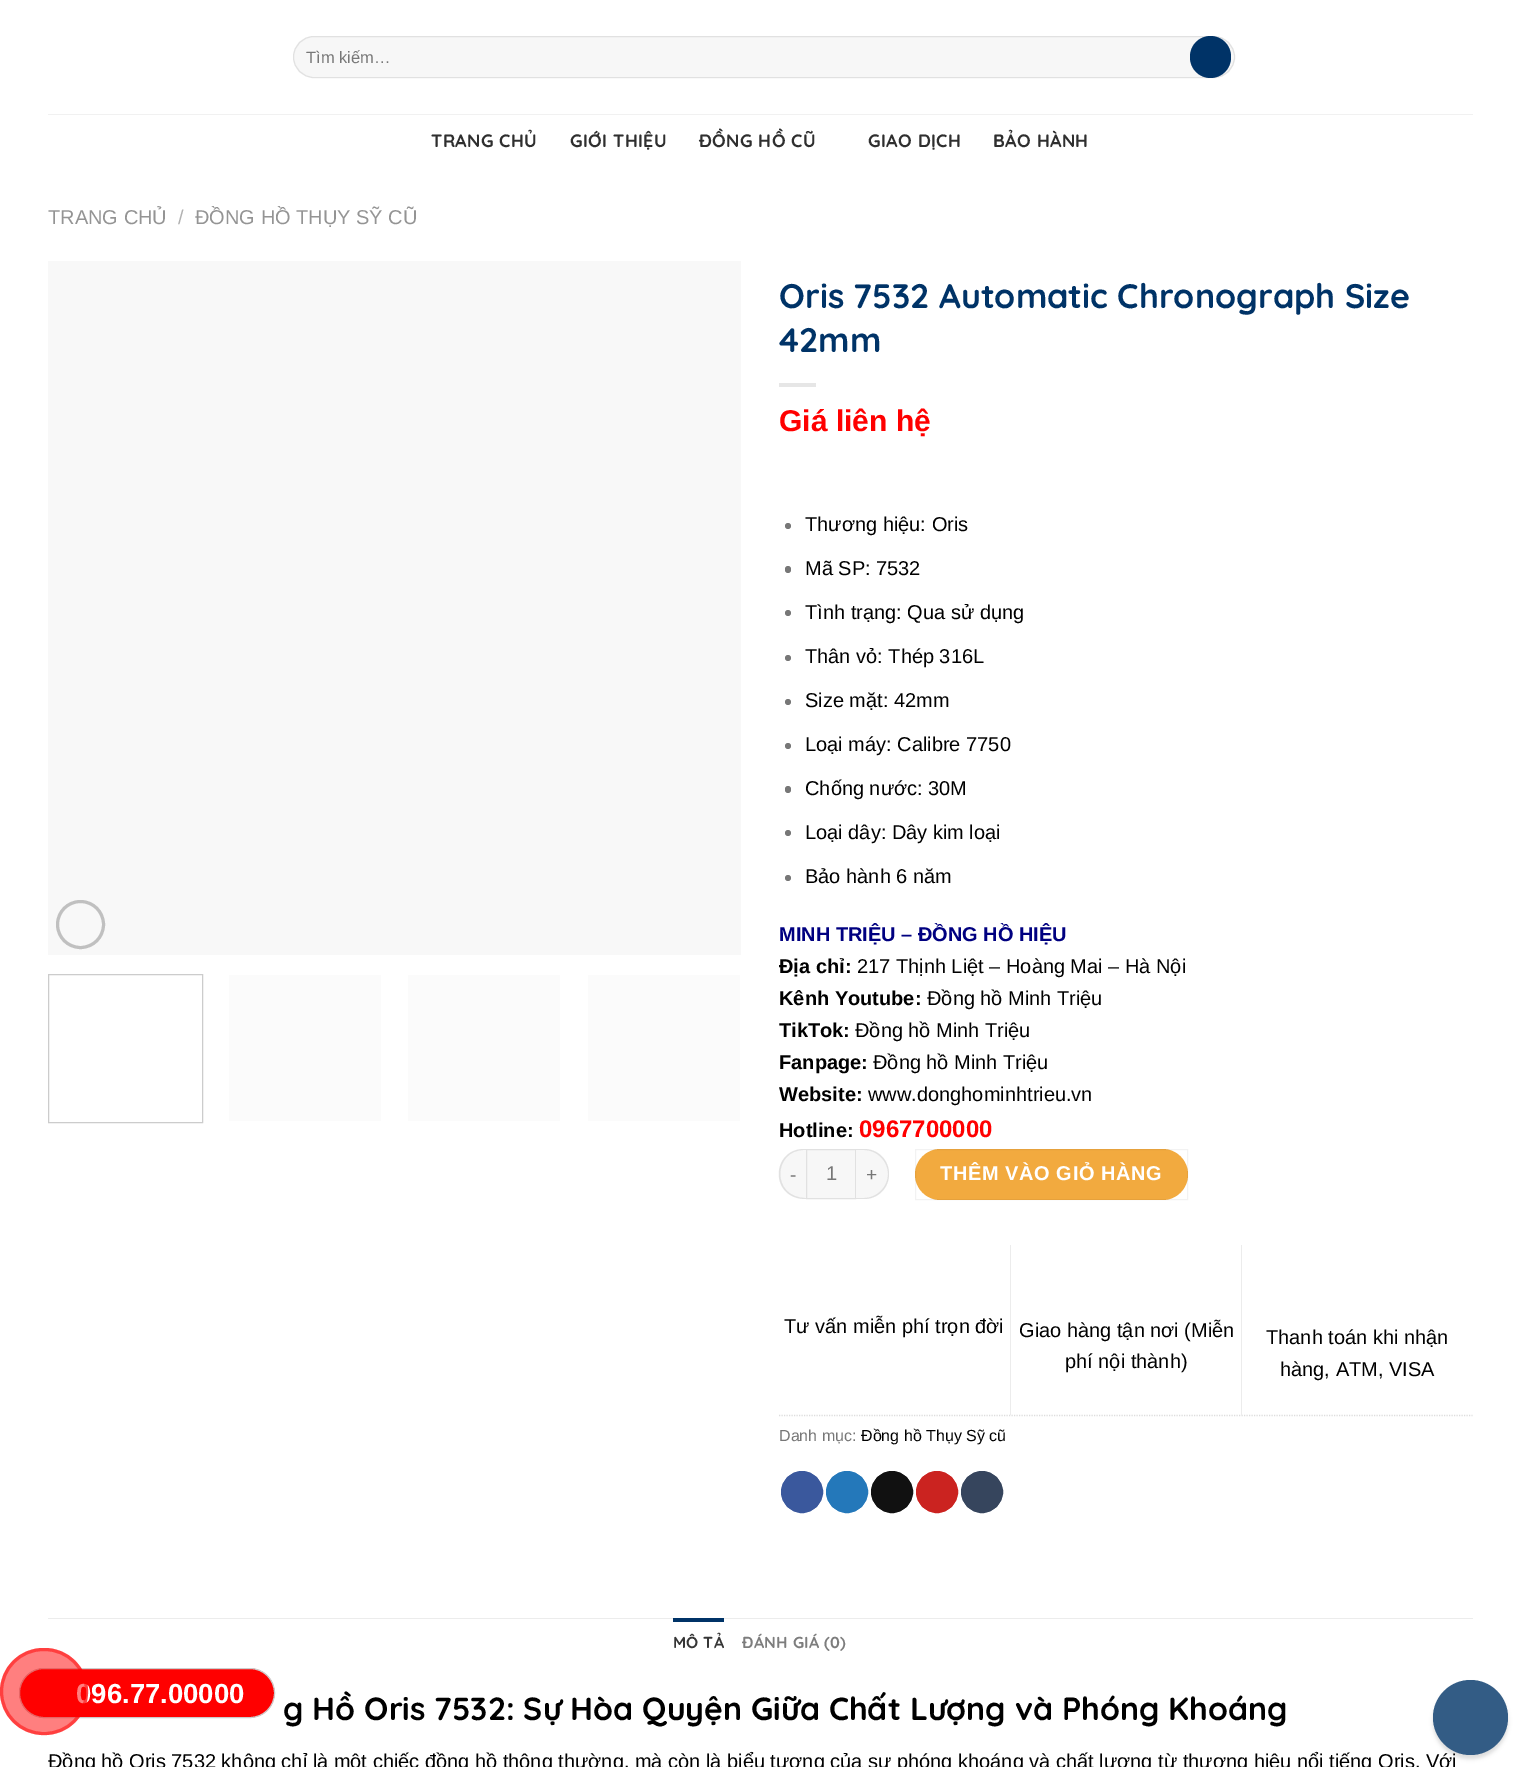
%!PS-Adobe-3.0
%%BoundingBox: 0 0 1519 1767
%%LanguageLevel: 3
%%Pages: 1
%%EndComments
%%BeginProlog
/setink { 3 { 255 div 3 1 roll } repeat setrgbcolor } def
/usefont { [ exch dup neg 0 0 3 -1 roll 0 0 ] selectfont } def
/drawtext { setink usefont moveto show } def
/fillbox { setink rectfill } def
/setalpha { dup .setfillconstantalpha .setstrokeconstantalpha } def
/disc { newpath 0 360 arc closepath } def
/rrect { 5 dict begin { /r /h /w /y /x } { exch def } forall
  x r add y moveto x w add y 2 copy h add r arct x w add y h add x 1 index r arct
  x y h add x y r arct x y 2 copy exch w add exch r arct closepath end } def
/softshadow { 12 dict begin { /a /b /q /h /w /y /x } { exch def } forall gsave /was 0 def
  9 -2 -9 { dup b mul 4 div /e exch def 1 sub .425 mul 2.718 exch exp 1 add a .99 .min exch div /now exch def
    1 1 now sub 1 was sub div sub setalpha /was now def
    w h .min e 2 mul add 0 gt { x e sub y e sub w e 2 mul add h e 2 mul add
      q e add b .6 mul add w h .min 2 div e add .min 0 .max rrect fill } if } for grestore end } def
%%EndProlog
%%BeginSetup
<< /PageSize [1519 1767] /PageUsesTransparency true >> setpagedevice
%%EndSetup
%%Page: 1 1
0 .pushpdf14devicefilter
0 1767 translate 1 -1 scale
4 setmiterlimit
0 0 1519 1767 255 255 255 fillbox
247 247 247 setink
293 36 942 42 21 rrect fill
0.09 setalpha
0 0 0 setink
293.5 36.5 941 41 20.5 rrect stroke
1 setalpha
(Tìm kiếm…) 306 63 /LiberationSans-Regular 16.5 119 119 119 drawtext
0 51 103 setink
1190 36 41 42 20.5 rrect fill
48 114 1425 1 241 241 241 fillbox
/Quicksand-Bold 18 usefont
47 47 47 setink
431 147 moveto 0.4 0 (TRANG CHỦ) ashow
570 147 moveto 0.4 0 (GIỚI THIỆU) ashow
699 147 moveto 0.4 0 (ĐỒNG HỒ CŨ) ashow
868 147 moveto 0.4 0 (GIAO DỊCH) ashow
993 147 moveto 0.4 0 (BẢO HÀNH) ashow
(TRANG CHỦ) 48 224 /LiberationSans-Regular 20 148 148 148 drawtext
(/) 178 224 /LiberationSans-Regular 20 178 178 178 drawtext
(ĐỒNG HỒ THỤY SỸ CŨ) 195 224 /LiberationSans-Regular 20 148 148 148 drawtext
48 261 693 694 248 248 248 fillbox
192 192 192 setink
3 setlinewidth
80.5 924.5 23 disc stroke
204 204 204 setink
1 setlinewidth
48.5 974.5 154 148 rectstroke
229 975 152 146 251 251 251 fillbox
408 975 152 146 251 251 251 fillbox
588 975 152 146 251 251 251 fillbox
(Oris 7532 Automatic Chronograph Size) 779 308 /Quicksand-Bold 34 0 51 103 drawtext
(42mm) 779 352 /Quicksand-Bold 34 0 51 103 drawtext
779 383 37 4 230 230 230 fillbox
(Giá liên hệ) 779 431 /LiberationSans-Bold 30 255 0 0 drawtext
119 119 119 setink
788 526 3 disc fill
(Thương hiệu: Oris) 805 531 /LiberationSans-Regular 20 0 0 0 drawtext
119 119 119 setink
785 566 6 7 3 rrect fill
(Mã SP: 7532) 805 575 /LiberationSans-Regular 20 0 0 0 drawtext
119 119 119 setink
788 613 3 disc fill
(Tình trạng: Qua sử dụng) 805 619 /LiberationSans-Regular 20 0 0 0 drawtext
119 119 119 setink
788 658 3 disc fill
(Thân vỏ: Thép 316L) 805 663 /LiberationSans-Regular 20 0 0 0 drawtext
119 119 119 setink
788 702 3 disc fill
(Size mặt: 42mm) 805 707 /LiberationSans-Regular 20 0 0 0 drawtext
119 119 119 setink
788 746 3 disc fill
(Loại máy: Calibre 7750) 805 751 /LiberationSans-Regular 20 0 0 0 drawtext
119 119 119 setink
785 786 6 7 3 rrect fill
(Chống nước: 30M) 805 795 /LiberationSans-Regular 20 0 0 0 drawtext
119 119 119 setink
788 833 3 disc fill
(Loại dây: Dây kim loại) 805 839 /LiberationSans-Regular 20 0 0 0 drawtext
119 119 119 setink
788 878 3 disc fill
(Bảo hành 6 năm) 805 883 /LiberationSans-Regular 20 0 0 0 drawtext
(MINH TRIỆU – ĐỒNG HỒ HIỆU) 779 941 /LiberationSans-Bold 20 0 0 128 drawtext
(Địa chỉ:) 779 973 /LiberationSans-Bold 20 0 0 0 drawtext
(217 Thịnh Liệt – Hoàng Mai – Hà Nội) 857 973 /LiberationSans-Regular 20 0 0 0 drawtext
(Kênh Youtube:) 779 1005 /LiberationSans-Bold 20 0 0 0 drawtext
(Đồng hồ Minh Triệu) 927 1005 /LiberationSans-Regular 20 0 0 0 drawtext
(TikTok:) 779 1037 /LiberationSans-Bold 20 0 0 0 drawtext
(Đồng hồ Minh Triệu) 855 1037 /LiberationSans-Regular 20 0 0 0 drawtext
(Fanpage:) 779 1069 /LiberationSans-Bold 20 0 0 0 drawtext
(Đồng hồ Minh Triệu) 873 1069 /LiberationSans-Regular 20 0 0 0 drawtext
(Website:) 779 1101 /LiberationSans-Bold 20 0 0 0 drawtext
(www.donghominhtrieu.vn) 868 1101 /LiberationSans-Regular 20 0 0 0 drawtext
(Hotline:) 779 1137 /LiberationSans-Bold 20 0 0 0 drawtext
(0967700000) 859 1137 /LiberationSans-Bold 24 255 0 0 drawtext
247 247 247 setink
804 1149 moveto 806 1149 lineto 806 1199 lineto 804 1199 lineto 790 1199 779 1188 779 1174 curveto 779 1160 790 1149 804 1149 curveto closepath fill
0.09 setalpha
0 0 0 setink
804 1149 moveto 806 1149 lineto 806 1199 lineto 769 1199 771 1149 804 1149 curveto closepath 804 1150 moveto 806 1150 lineto 806 1198 lineto 771 1198 773 1150 804 1150 curveto closepath eofill
/LiberationSans-Regular 19 usefont
1 setalpha
119 119 119 setink
790 1181 moveto 1 0 (-) ashow
247 247 247 setink
806.5 1149.5 moveto 855.5 1149.5 lineto 855.5 1198.5 lineto 806.5 1198.5 lineto closepath gsave fill grestore
225 225 225 setink
stroke
(1) 826 1180 /LiberationSans-Regular 20 119 119 119 drawtext
247 247 247 setink
856 1149 moveto 864 1149 lineto 878 1149 889 1160 889 1174 curveto 889 1188 878 1199 864 1199 curveto 856 1199 lineto closepath fill
0.09 setalpha
0 0 0 setink
856 1149 moveto 864 1149 lineto 878 1149 889 1160 889 1174 curveto 889 1188 878 1199 864 1199 curveto 856 1199 lineto closepath 856 1150 moveto 864 1150 lineto 877 1150 888 1161 888 1174 curveto 888 1187 877 1198 864 1198 curveto 856 1198 lineto closepath eofill
/LiberationSans-Regular 19 usefont
1 setalpha
119 119 119 setink
866 1181 moveto 1 0 (+) ashow
242 170 63 setink
915 1149 273 51 25.5 rrect fill
0.05 setalpha
0 0 0 setink
915.5 1149.5 272 50 rectstroke
/LiberationSans-Bold 20 usefont
1 setalpha
255 255 255 setink
940 1180 moveto 0.6 0 (THÊM VÀO GIỎ HÀNG) ashow
(Tư vấn miễn phí trọn đời) 784 1333 /LiberationSans-Regular 20 0 0 0 drawtext
221 221 221 setink
1.2 setlinewidth
[1.25 1.25] 0 setdash
779 1415.5 moveto 1472.5 1415.5 lineto stroke
1010 1245 1 170 236 236 236 fillbox
(Giao hàng tận nơi \(Miễn) 1019 1337 /LiberationSans-Regular 20 0 0 0 drawtext
(phí nội thành\)) 1065 1368 /LiberationSans-Regular 20 0 0 0 drawtext
1241 1245 1 170 236 236 236 fillbox
(Thanh toán khi nhận) 1266 1344 /LiberationSans-Regular 20 0 0 0 drawtext
(hàng, ATM, VISA) 1280 1376 /LiberationSans-Regular 20 0 0 0 drawtext
(Danh mục:) 779 1441 /LiberationSans-Regular 16 119 119 119 drawtext
(Đồng hồ Thụy Sỹ cũ) 861 1441 /LiberationSans-Regular 16 0 0 0 drawtext
58 88 157 setink
802 1492 20.5 disc gsave fill grestore
1 setlinewidth
[] 0 setdash
stroke
36 120 186 setink
847 1492 20.5 disc gsave fill grestore
stroke
17 17 17 setink
892 1492 20.5 disc gsave fill grestore
stroke
203 35 32 setink
937 1492 20.5 disc gsave fill grestore
stroke
54 69 93 setink
982 1492 20.5 disc gsave fill grestore
stroke
48 1618 1425 1 236 236 236 fillbox
673 1618 51 4 0 51 103 fillbox
/Quicksand-Bold 16 usefont
54 54 54 setink
673 1648 moveto 0.25 0 (MÔ TẢ) ashow
125 125 125 setink
742 1648 moveto 0.25 0 (ĐÁNH GIÁ \(0\)) ashow
(g Hồ Oris 7532: Sự Hòa Quyện Giữa Chất Lượng và Phóng Khoáng) 283 1720 /Quicksand-Bold 32 0 0 0 drawtext
(Đồng hồ Oris 7532 không chỉ là một chiếc đồng hồ thông thường, mà còn là biểu tượng của sự phóng khoáng và chất lượng từ thương hiệu nổi tiếng Oris. Với) 48 1768 /LiberationSans-Regular 20 0 0 0 drawtext
1433 1684 75 75 37.5 2 0.13 softshadow
51 92 133 setink
1470.5 1717.5 37.5 disc fill
255 0 0 setink
19.5 1668.5 255 49 24.5 rrect gsave fill grestore
204 204 204 setink
stroke
(096.77.00000) 76 1703 /LiberationSans-Bold 27.5 255 255 255 drawtext
0.5 setalpha
255 0 0 setink
0 1648 88 87 43.5 rrect fill
3 setlinewidth
1.5 1649.5 85 84 42 rrect stroke
.poppdf14devicefilter showpage
%%EOF
